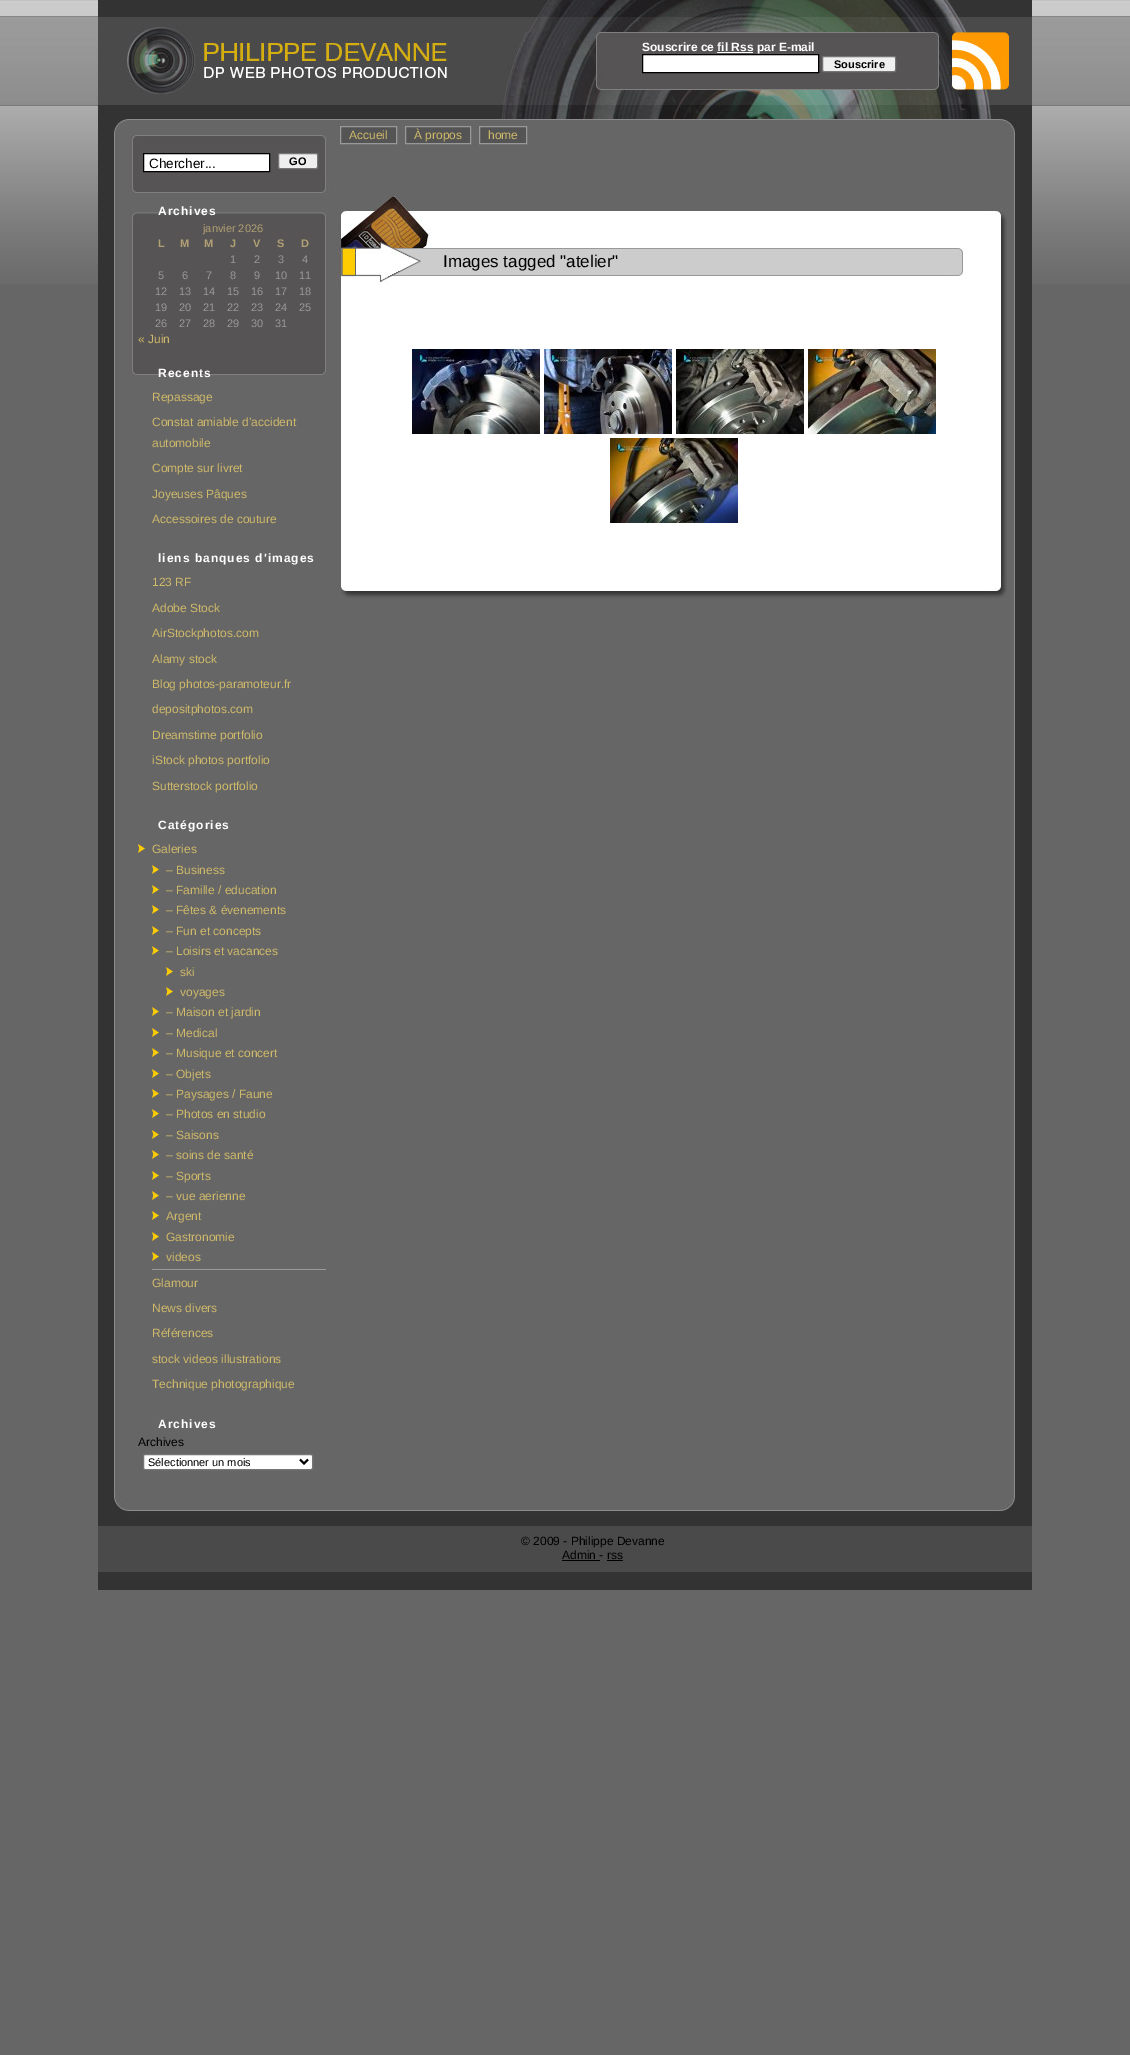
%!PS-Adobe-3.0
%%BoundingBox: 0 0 1130 2055
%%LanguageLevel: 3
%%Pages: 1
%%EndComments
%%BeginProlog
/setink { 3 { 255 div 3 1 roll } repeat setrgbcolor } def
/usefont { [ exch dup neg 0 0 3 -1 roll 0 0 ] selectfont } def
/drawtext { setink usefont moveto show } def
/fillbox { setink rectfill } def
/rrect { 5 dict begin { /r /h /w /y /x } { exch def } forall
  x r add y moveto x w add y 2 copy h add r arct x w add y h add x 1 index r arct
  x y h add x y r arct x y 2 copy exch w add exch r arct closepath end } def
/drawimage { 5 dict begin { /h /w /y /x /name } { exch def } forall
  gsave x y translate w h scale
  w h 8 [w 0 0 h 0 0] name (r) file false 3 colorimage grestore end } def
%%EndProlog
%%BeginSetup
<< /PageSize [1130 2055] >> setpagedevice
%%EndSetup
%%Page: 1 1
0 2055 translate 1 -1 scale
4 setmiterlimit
0 0 1130 2055 102 102 102 fillbox
(assets/img1.rgb) 0 0 1130 284 drawimage
(assets/img2.rgb) 98 111 934 1381 drawimage
(assets/img3.rgb) 98 0 934 111 drawimage
(Souscrire ce fil Rss par E-mail) 642 51 /LiberationSans-Bold 12 255 255 255 drawtext
717 52 36 1 255 255 255 fillbox
642.5 54.5 moveto 818.5 54.5 lineto 818.5 72.5 lineto 642.5 72.5 lineto closepath gsave fill grestore
0 0 0 setink
stroke
239 239 239 setink
822.5 56.5 73 15 1.5 rrect gsave fill grestore
118 118 118 setink
stroke
(Souscrire) 834 68 /LiberationSans-Bold 11 0 0 0 drawtext
(assets/img4.rgb) 114 111 903 264 drawimage
84 84 84 setink
340.5 126.5 moveto 396.5 126.5 lineto 396.5 143.5 lineto 340.5 143.5 lineto closepath gsave fill grestore
153 153 153 setink
stroke
(Accueil) 349 139 /LiberationSans-Regular 12 207 185 106 drawtext
84 84 84 setink
405.5 126.5 moveto 470.5 126.5 lineto 470.5 143.5 lineto 405.5 143.5 lineto closepath gsave fill grestore
153 153 153 setink
stroke
(À propos) 414 139 /LiberationSans-Regular 12 207 185 106 drawtext
84 84 84 setink
479.5 126.5 moveto 526.5 126.5 lineto 526.5 143.5 lineto 479.5 143.5 lineto closepath gsave fill grestore
153 153 153 setink
stroke
(home) 488 139 /LiberationSans-Regular 12 207 185 106 drawtext
255 255 255 setink
143.5 153.5 moveto 269.5 153.5 lineto 269.5 171.5 lineto 143.5 171.5 lineto closepath gsave fill grestore
0 0 0 setink
stroke
(Chercher...) 149 168 /LiberationSans-Regular 13.5 0 0 0 drawtext
239 239 239 setink
278.5 153.5 39 15 1.5 rrect gsave fill grestore
118 118 118 setink
stroke
(GO) 289 165 /LiberationSans-Bold 11 0 0 0 drawtext
/LiberationSans-Bold 12 usefont
255 255 255 setink
158 215 moveto 1 0 (Archives) ashow
(janvier 2026) 203 232 /LiberationSans-Regular 11 177 160 116 drawtext
(L) 158 247 /LiberationSans-Bold 11 177 160 116 drawtext
(M) 180 247 /LiberationSans-Bold 11 177 160 116 drawtext
(M) 204 247 /LiberationSans-Bold 11 177 160 116 drawtext
(J) 230 247 /LiberationSans-Bold 11 177 160 116 drawtext
(V) 253 247 /LiberationSans-Bold 11 177 160 116 drawtext
(S) 277 247 /LiberationSans-Bold 11 177 160 116 drawtext
(D) 301 247 /LiberationSans-Bold 11 177 160 116 drawtext
(1) 230 263 /LiberationSans-Regular 11 153 153 153 drawtext
(2) 254 263 /LiberationSans-Regular 11 153 153 153 drawtext
(3) 278 263 /LiberationSans-Regular 11 153 153 153 drawtext
(4) 302 263 /LiberationSans-Regular 11 153 153 153 drawtext
(5) 158 279 /LiberationSans-Regular 11 153 153 153 drawtext
(6) 182 279 /LiberationSans-Regular 11 153 153 153 drawtext
(7) 206 279 /LiberationSans-Regular 11 153 153 153 drawtext
(8) 230 279 /LiberationSans-Regular 11 153 153 153 drawtext
(9) 254 279 /LiberationSans-Regular 11 153 153 153 drawtext
(10) 275 279 /LiberationSans-Regular 11 153 153 153 drawtext
(11) 299 279 /LiberationSans-Regular 11 153 153 153 drawtext
(12) 155 295 /LiberationSans-Regular 11 153 153 153 drawtext
(13) 179 295 /LiberationSans-Regular 11 153 153 153 drawtext
(14) 203 295 /LiberationSans-Regular 11 153 153 153 drawtext
(15) 227 295 /LiberationSans-Regular 11 153 153 153 drawtext
(16) 251 295 /LiberationSans-Regular 11 153 153 153 drawtext
(17) 275 295 /LiberationSans-Regular 11 153 153 153 drawtext
(18) 299 295 /LiberationSans-Regular 11 153 153 153 drawtext
(19) 155 311 /LiberationSans-Regular 11 153 153 153 drawtext
(20) 179 311 /LiberationSans-Regular 11 153 153 153 drawtext
(21) 203 311 /LiberationSans-Regular 11 153 153 153 drawtext
(22) 227 311 /LiberationSans-Regular 11 153 153 153 drawtext
(23) 251 311 /LiberationSans-Regular 11 153 153 153 drawtext
(24) 275 311 /LiberationSans-Regular 11 153 153 153 drawtext
(25) 299 311 /LiberationSans-Regular 11 153 153 153 drawtext
(26) 155 327 /LiberationSans-Regular 11 153 153 153 drawtext
(27) 179 327 /LiberationSans-Regular 11 153 153 153 drawtext
(28) 203 327 /LiberationSans-Regular 11 153 153 153 drawtext
(29) 227 327 /LiberationSans-Regular 11 153 153 153 drawtext
(30) 251 327 /LiberationSans-Regular 11 153 153 153 drawtext
(31) 275 327 /LiberationSans-Regular 11 153 153 153 drawtext
(« Juin) 138 343 /LiberationSans-Regular 12 207 185 106 drawtext
/LiberationSans-Bold 12 usefont
255 255 255 setink
158 377 moveto 1 0 (Recents) ashow
(Repassage) 152 401 /LiberationSans-Regular 12 207 185 106 drawtext
(Constat amiable d’accident) 152 426 /LiberationSans-Regular 12 207 185 106 drawtext
(automobile) 152 447 /LiberationSans-Regular 12 207 185 106 drawtext
(Compte sur livret) 152 472 /LiberationSans-Regular 12 207 185 106 drawtext
(Joyeuses Pâques) 152 498 /LiberationSans-Regular 12 207 185 106 drawtext
(Accessoires de couture) 152 523 /LiberationSans-Regular 12 207 185 106 drawtext
/LiberationSans-Bold 12 usefont
255 255 255 setink
158 562 moveto 1 0 (liens banques d'images) ashow
(123 RF) 152 586 /LiberationSans-Regular 12 207 185 106 drawtext
(Adobe Stock) 152 612 /LiberationSans-Regular 12 207 185 106 drawtext
(AirStockphotos.com) 152 637 /LiberationSans-Regular 12 207 185 106 drawtext
(Alamy stock) 152 663 /LiberationSans-Regular 12 207 185 106 drawtext
(Blog photos-paramoteur.fr) 152 688 /LiberationSans-Regular 12 207 185 106 drawtext
(depositphotos.com) 152 713 /LiberationSans-Regular 12 207 185 106 drawtext
(Dreamstime portfolio) 152 739 /LiberationSans-Regular 12 207 185 106 drawtext
(iStock photos portfolio) 152 764 /LiberationSans-Regular 12 207 185 106 drawtext
(Sutterstock portfolio) 152 790 /LiberationSans-Regular 12 207 185 106 drawtext
/LiberationSans-Bold 12 usefont
255 255 255 setink
158 829 moveto 1 0 (Catégories) ashow
152 1269 174 1 153 153 153 fillbox
(assets/img5.rgb) 138 844 7 9 drawimage
(Galeries) 152 853 /LiberationSans-Regular 12 207 185 106 drawtext
(assets/img5.rgb) 152 865 7 9 drawimage
(– Business) 166 874 /LiberationSans-Regular 12 207 185 106 drawtext
(assets/img5.rgb) 152 885 7 9 drawimage
(– Famille / education) 166 894 /LiberationSans-Regular 12 207 185 106 drawtext
(assets/img5.rgb) 152 905 7 9 drawimage
(– Fêtes & évenements) 166 914 /LiberationSans-Regular 12 207 185 106 drawtext
(assets/img5.rgb) 152 926 7 9 drawimage
(– Fun et concepts) 166 935 /LiberationSans-Regular 12 207 185 106 drawtext
(assets/img5.rgb) 152 946 7 9 drawimage
(– Loisirs et vacances) 166 955 /LiberationSans-Regular 12 207 185 106 drawtext
(assets/img5.rgb) 166 967 7 9 drawimage
(ski) 180 976 /LiberationSans-Regular 12 207 185 106 drawtext
(assets/img5.rgb) 166 987 7 9 drawimage
(voyages) 180 996 /LiberationSans-Regular 12 207 185 106 drawtext
(assets/img5.rgb) 152 1007 7 9 drawimage
(– Maison et jardin) 166 1016 /LiberationSans-Regular 12 207 185 106 drawtext
(assets/img5.rgb) 152 1028 7 9 drawimage
(– Medical) 166 1037 /LiberationSans-Regular 12 207 185 106 drawtext
(assets/img5.rgb) 152 1048 7 9 drawimage
(– Musique et concert) 166 1057 /LiberationSans-Regular 12 207 185 106 drawtext
(assets/img5.rgb) 152 1069 7 9 drawimage
(– Objets) 166 1078 /LiberationSans-Regular 12 207 185 106 drawtext
(assets/img5.rgb) 152 1089 7 9 drawimage
(– Paysages / Faune) 166 1098 /LiberationSans-Regular 12 207 185 106 drawtext
(assets/img5.rgb) 152 1109 7 9 drawimage
(– Photos en studio) 166 1118 /LiberationSans-Regular 12 207 185 106 drawtext
(assets/img5.rgb) 152 1130 7 9 drawimage
(– Saisons) 166 1139 /LiberationSans-Regular 12 207 185 106 drawtext
(assets/img5.rgb) 152 1150 7 9 drawimage
(– soins de santé) 166 1159 /LiberationSans-Regular 12 207 185 106 drawtext
(assets/img5.rgb) 152 1171 7 9 drawimage
(– Sports) 166 1180 /LiberationSans-Regular 12 207 185 106 drawtext
(assets/img5.rgb) 152 1191 7 9 drawimage
(– vue aerienne) 166 1200 /LiberationSans-Regular 12 207 185 106 drawtext
(assets/img5.rgb) 152 1211 7 9 drawimage
(Argent) 166 1220 /LiberationSans-Regular 12 207 185 106 drawtext
(assets/img5.rgb) 152 1232 7 9 drawimage
(Gastronomie) 166 1241 /LiberationSans-Regular 12 207 185 106 drawtext
(assets/img5.rgb) 152 1252 7 9 drawimage
(videos) 166 1261 /LiberationSans-Regular 12 207 185 106 drawtext
(Glamour) 152 1287 /LiberationSans-Regular 12 207 185 106 drawtext
(News divers) 152 1312 /LiberationSans-Regular 12 207 185 106 drawtext
(Références) 152 1337 /LiberationSans-Regular 12 207 185 106 drawtext
(stock videos illustrations) 152 1363 /LiberationSans-Regular 12 207 185 106 drawtext
(Technique photographique) 152 1388 /LiberationSans-Regular 12 207 185 106 drawtext
/LiberationSans-Bold 12 usefont
255 255 255 setink
158 1428 moveto 1 0 (Archives) ashow
(Archives) 138 1446 /LiberationSans-Regular 12 0 0 0 drawtext
255 255 255 setink
143.5 1454.5 169 15 1.5 rrect gsave fill grestore
118 118 118 setink
stroke
0 0 0 setink
2 setlinewidth
300 1459.5 moveto 304 1463.5 lineto 308 1459.5 lineto stroke
(Sélectionner un mois) 148 1466 /LiberationSans-Regular 11 0 0 0 drawtext
(assets/img6.rgb) 341 285 666 298 drawimage
(assets/img7.rgb) 336 192 671 93 drawimage
(assets/img8.rgb) 336 583 671 22 drawimage
(Images tagged "atelier") 443 267 /LiberationSans-Regular 17 0 0 0 drawtext
(assets/img9.rgb) 412 349 128 85 drawimage
(assets/img10.rgb) 544 349 128 85 drawimage
(assets/img11.rgb) 676 349 128 85 drawimage
(assets/img12.rgb) 808 349 128 85 drawimage
(assets/img13.rgb) 610 438 128 85 drawimage
(assets/img14.rgb) 98 1492 934 98 drawimage
(© 2009 - Philippe Devanne) 521 1545 /LiberationSans-Regular 12 0 0 0 drawtext
(Admin - rss) 562 1559 /LiberationSans-Regular 12 0 0 0 drawtext
562 1560 38 1 0 0 0 fillbox
607 1560 16 1 0 0 0 fillbox
showpage
%%EOF
